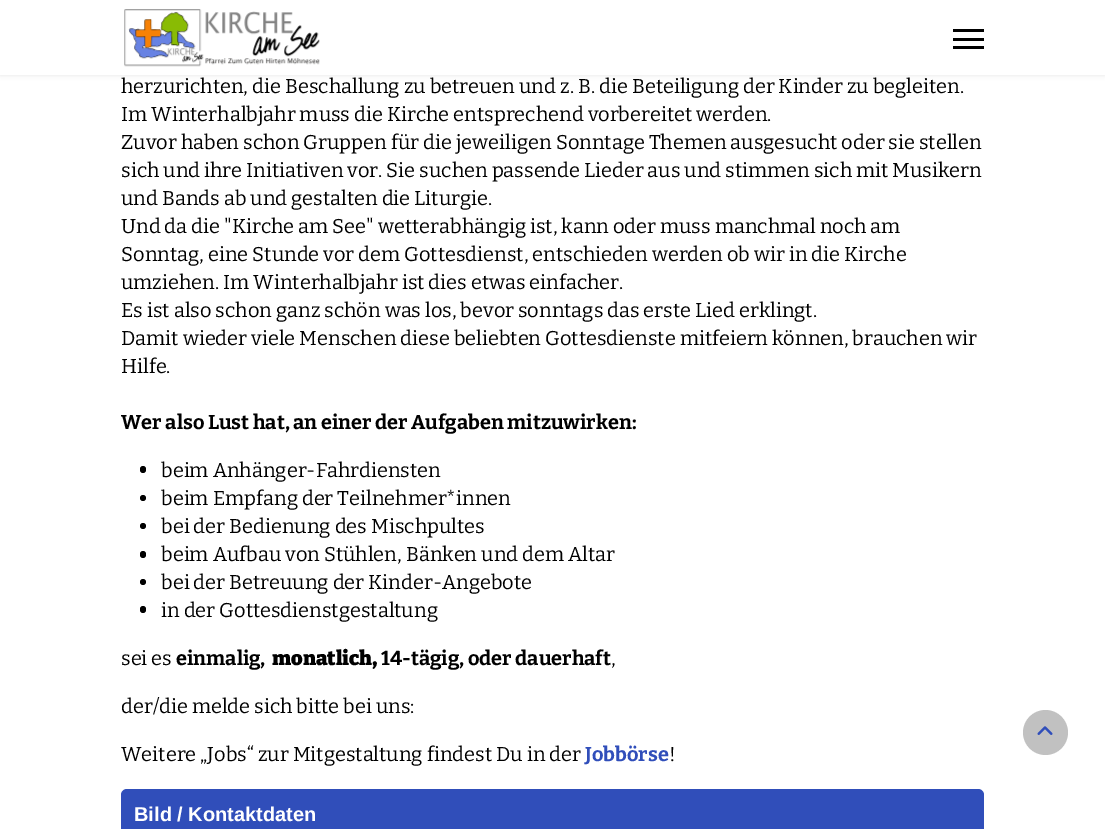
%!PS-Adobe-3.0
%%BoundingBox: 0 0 1105 829
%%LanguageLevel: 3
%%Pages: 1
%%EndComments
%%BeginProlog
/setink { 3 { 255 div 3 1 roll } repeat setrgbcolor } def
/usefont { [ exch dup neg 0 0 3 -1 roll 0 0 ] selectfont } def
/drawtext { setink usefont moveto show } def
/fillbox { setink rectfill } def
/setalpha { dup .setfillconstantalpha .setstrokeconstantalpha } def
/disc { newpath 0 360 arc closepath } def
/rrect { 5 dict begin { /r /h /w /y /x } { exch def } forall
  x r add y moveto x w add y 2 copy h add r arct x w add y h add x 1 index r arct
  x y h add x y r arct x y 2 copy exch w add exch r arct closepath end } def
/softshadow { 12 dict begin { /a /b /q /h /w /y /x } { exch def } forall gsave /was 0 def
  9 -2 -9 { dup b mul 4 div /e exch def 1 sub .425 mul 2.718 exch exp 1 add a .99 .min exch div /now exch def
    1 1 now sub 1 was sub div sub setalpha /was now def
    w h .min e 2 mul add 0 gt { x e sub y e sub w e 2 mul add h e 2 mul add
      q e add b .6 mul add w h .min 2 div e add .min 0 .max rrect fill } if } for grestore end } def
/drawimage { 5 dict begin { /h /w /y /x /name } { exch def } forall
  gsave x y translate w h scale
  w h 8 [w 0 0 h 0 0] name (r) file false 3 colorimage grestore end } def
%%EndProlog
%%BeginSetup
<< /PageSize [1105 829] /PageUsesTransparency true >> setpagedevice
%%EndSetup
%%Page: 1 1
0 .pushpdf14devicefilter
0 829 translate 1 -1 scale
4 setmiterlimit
0 0 1105 829 255 255 255 fillbox
0 0 0 setink
0 0 1105 75 0 2.5 0.1 softshadow
0 0 1105 75 255 255 255 fillbox
(assets/img1.rgb) 124 9 196 58 drawimage
953 29 31 3 0 0 0 fillbox
953 38 31 3 0 0 0 fillbox
953 46 31 3 0 0 0 fillbox
(herzurichten, die Beschallung zu betreuen und z. B. die Beteiligung der Kinder zu begleiten.) 121 93 /Bitter-Thin 20 0 0 0 drawtext
(Im Winterhalbjahr muss die Kirche entsprechend vorbereitet werden.) 121 121 /Bitter-Thin 20 0 0 0 drawtext
(Zuvor haben schon Gruppen für die jeweiligen Sonntage Themen ausgesucht oder sie stellen) 121 149 /Bitter-Thin 20 0 0 0 drawtext
(sich und ihre Initiativen vor. Sie suchen passende Lieder aus und stimmen sich mit Musikern) 121 177 /Bitter-Thin 20 0 0 0 drawtext
(und Bands ab und gestalten die Liturgie.) 121 205 /Bitter-Thin 20 0 0 0 drawtext
(Und da die "Kirche am See" wetterabhängig ist, kann oder muss manchmal noch am) 121 233 /Bitter-Thin 20 0 0 0 drawtext
(Sonntag, eine Stunde vor dem Gottesdienst, entschieden werden ob wir in die Kirche) 121 261 /Bitter-Thin 20 0 0 0 drawtext
(umziehen. Im Winterhalbjahr ist dies etwas einfacher.) 121 289 /Bitter-Thin 20 0 0 0 drawtext
(Es ist also schon ganz schön was los, bevor sonntags das erste Lied erklingt.) 121 317 /Bitter-Thin 20 0 0 0 drawtext
(Damit wieder viele Menschen diese beliebten Gottesdienste mitfeiern können, brauchen wir) 121 345 /Bitter-Thin 20 0 0 0 drawtext
(Hilfe.) 121 373 /Bitter-Thin 20 0 0 0 drawtext
(Wer also Lust hat, an einer der Aufgaben mitzuwirken:) 121 429 /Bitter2-Thin 20 0 0 0 drawtext
140 466 6 7 3 rrect fill
(beim Anhänger-Fahrdiensten) 161 477 /Bitter-Thin 20 0 0 0 drawtext
143 498 3 disc fill
(beim Empfang der Teilnehmer*innen) 161 505 /Bitter-Thin 20 0 0 0 drawtext
143 526 3 disc fill
(bei der Bedienung des Mischpultes) 161 533 /Bitter-Thin 20 0 0 0 drawtext
140 551 6 7 3 rrect fill
(beim Aufbau von Stühlen, Bänken und dem Altar) 161 561 /Bitter-Thin 20 0 0 0 drawtext
143 582 3 disc fill
(bei der Betreuung der Kinder-Angebote) 161 589 /Bitter-Thin 20 0 0 0 drawtext
140 606 6 7 3 rrect fill
(in der Gottesdienstgestaltung) 161 617 /Bitter-Thin 20 0 0 0 drawtext
(sei es) 121 665 /Bitter-Thin 20 0 0 0 drawtext
(einmalig,) 176 665 /Bitter2-Thin 20 0 0 0 drawtext
(monatlich,) 272 665 /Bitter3-Thin 20 0 0 0 drawtext
(14-tägig, oder dauerhaft) 381 665 /Bitter2-Thin 20 0 0 0 drawtext
(,) 611 665 /Bitter-Thin 20 0 0 0 drawtext
(der/die melde sich bitte bei uns:) 121 713 /Bitter-Thin 20 0 0 0 drawtext
(Weitere „Jobs“ zur Mitgestaltung findest Du in der) 121 761 /Bitter-Thin 20 0 0 0 drawtext
(Jobbörse) 585 761 /Bitter2-Thin 20 48 78 186 drawtext
(!) 669 761 /Bitter-Thin 20 0 0 0 drawtext
48 78 186 setink
121 789 863 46 6 rrect fill
(Bild / Kontaktdaten) 134 821 /LiberationSans-Bold 20 255 255 255 drawtext
193 193 193 setink
1045.5 732.5 22.5 disc fill
(assets/img2.rgb) 1037 726 16 9 drawimage
.poppdf14devicefilter showpage
%%EOF
